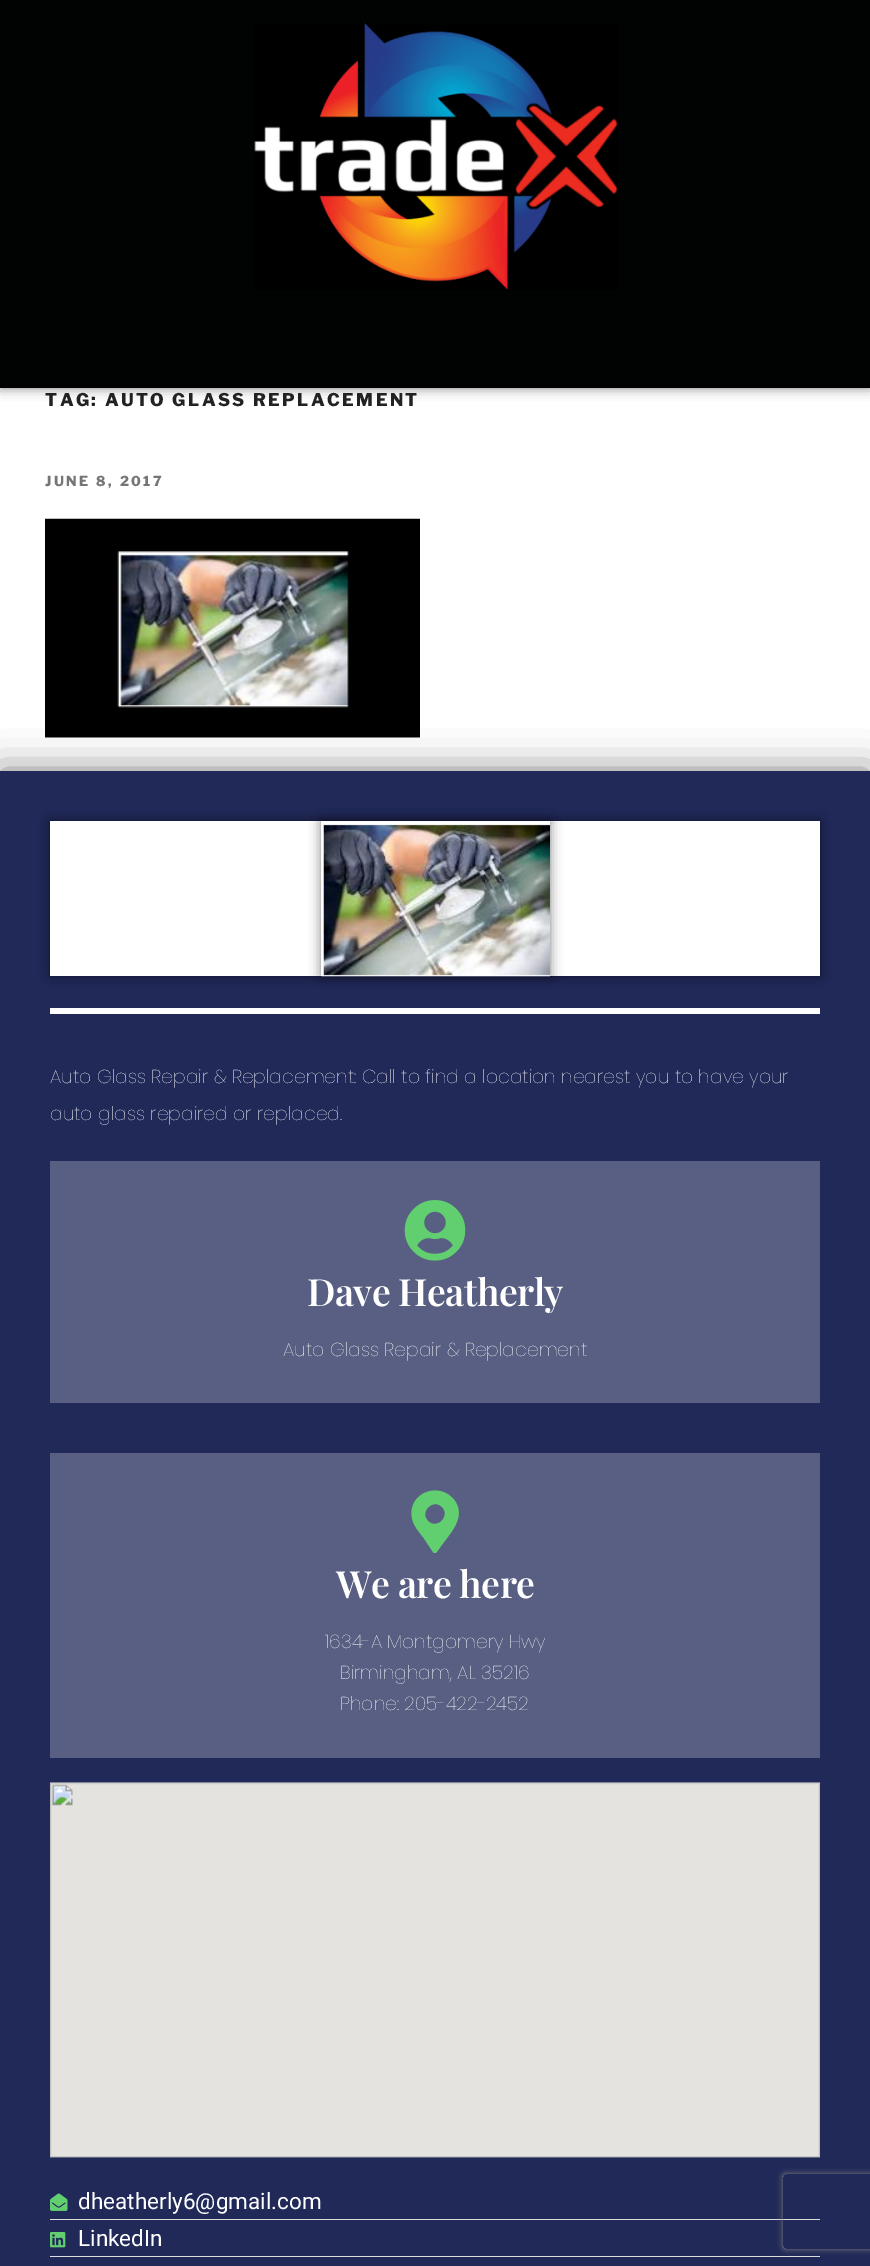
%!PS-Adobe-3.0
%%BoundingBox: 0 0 870 2266
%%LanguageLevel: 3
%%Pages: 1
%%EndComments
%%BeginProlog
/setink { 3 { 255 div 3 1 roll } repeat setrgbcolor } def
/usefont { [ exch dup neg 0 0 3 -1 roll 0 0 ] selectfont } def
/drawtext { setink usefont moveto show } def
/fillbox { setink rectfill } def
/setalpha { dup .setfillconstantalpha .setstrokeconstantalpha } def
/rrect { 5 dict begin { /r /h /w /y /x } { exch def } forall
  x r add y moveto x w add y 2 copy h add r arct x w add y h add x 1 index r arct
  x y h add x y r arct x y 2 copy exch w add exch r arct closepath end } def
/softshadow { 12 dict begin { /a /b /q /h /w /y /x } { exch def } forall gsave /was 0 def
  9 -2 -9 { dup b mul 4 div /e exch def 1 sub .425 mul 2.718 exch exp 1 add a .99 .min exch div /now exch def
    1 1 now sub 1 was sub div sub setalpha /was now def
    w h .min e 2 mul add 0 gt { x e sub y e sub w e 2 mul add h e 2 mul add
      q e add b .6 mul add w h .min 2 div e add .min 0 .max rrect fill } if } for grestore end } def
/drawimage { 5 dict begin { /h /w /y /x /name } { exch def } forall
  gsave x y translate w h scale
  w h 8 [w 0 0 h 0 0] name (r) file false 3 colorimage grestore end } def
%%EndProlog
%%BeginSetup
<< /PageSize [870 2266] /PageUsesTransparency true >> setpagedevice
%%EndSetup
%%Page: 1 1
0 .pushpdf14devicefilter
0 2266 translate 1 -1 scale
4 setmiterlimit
0 0 870 2266 255 255 255 fillbox
0 0 0 setink
0 0 870 388 0 6 0.5 softshadow
0 0 870 388 1 2 2 fillbox
(assets/img1.rgb) 254 23 364 267 drawimage
/LibreFranklin-ExtraBold 17.5 usefont
34 34 34 setink
45 406 moveto 2.45 0 (TAG: AUTO GLASS REPLACEMENT) ashow
/LibreFranklin-ExtraBold 13.75 usefont
118 118 118 setink
45 486 moveto 2.5 0 (JUNE 8, 2017) ashow
(assets/img2.rgb) 45 518 375 220 drawimage
0 0 0 setink
0 771 870 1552 0 19 0.5 softshadow
0 771 870 1495 32 41 88 fillbox
0 0 0 setink
50 821 770 155 0 6 0.5 softshadow
50 821 770 155 255 255 255 fillbox
0 0 0 setink
321 821 229 155 0 6 0.5 softshadow
(assets/img3.rgb) 321 821 229 156 drawimage
50 1008 770 6 255 255 255 fillbox
(Auto Glass Repair & Replacement: Call to find a location nearest you to have your) 50 1083 /Poppins-Thin 18.75 255 255 255 drawtext
(auto glass repaired or replaced.) 50 1120 /Poppins-Thin 18.75 255 255 255 drawtext
50 1161 770 242 88 95 130 fillbox
(assets/img4.rgb) 404 1200 62 61 drawimage
/PlayfairDisplay-SemiBold 37.5 usefont
255 255 255 setink
307 1306 moveto -0.6 0 (Dave Heatherly) ashow
(Auto Glass Repair & Replacement) 283 1356 /Poppins-Thin 18.75 255 255 255 drawtext
50 1453 770 305 88 95 130 fillbox
97 206 112 setink
433 1552 moveto 423 1537 lineto 419 1532 413 1525 412 1518 curveto 407 1493 440 1480 455 1501 curveto 465 1516 453 1530 444 1542 curveto 436 1553 lineto 435 1553 433 1553 433 1552 curveto closepath 428 1521 moveto 437 1530 451 1516 442 1507 curveto 433 1498 419 1512 428 1521 curveto closepath fill
/PlayfairDisplay-SemiBold 37.5 usefont
255 255 255 setink
336 1598 moveto -0.6 0 (We are here) ashow
(1634-A Montgomery Hwy) 325 1648 /Poppins-Thin 18.75 255 255 255 drawtext
(Birmingham, AL 35216) 340 1679 /Poppins-Thin 18.75 255 255 255 drawtext
(Phone: 205-422-2452) 340 1710 /Poppins-Thin 18.75 255 255 255 drawtext
(assets/img5.rgb) 50 1782 770 376 drawimage
(assets/img6.rgb) 50 2193 18 18 drawimage
(dheatherly6@gmail.com) 78 2209 /Roboto-Regular 22.5 255 255 255 drawtext
50 2219 770 1 221 221 221 fillbox
(assets/img7.rgb) 50 2232 16 16 drawimage
(LinkedIn) 78 2246 /Roboto-Regular 22.5 255 255 255 drawtext
50 2256 770 1 221 221 221 fillbox
gsave
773 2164 moveto 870 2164 lineto 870 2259 lineto 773 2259 lineto closepath 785.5 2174 moveto 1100.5 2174 lineto 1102 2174 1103 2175 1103 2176.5 curveto 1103 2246.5 lineto 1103 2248 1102 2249 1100.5 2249 curveto 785.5 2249 lineto 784 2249 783 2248 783 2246.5 curveto 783 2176.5 lineto 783 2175 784 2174 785.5 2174 curveto closepath eoclip newpath
128 128 128 setink
783 2174 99 75 2.5 3 1 softshadow
grestore
.poppdf14devicefilter showpage
%%EOF
